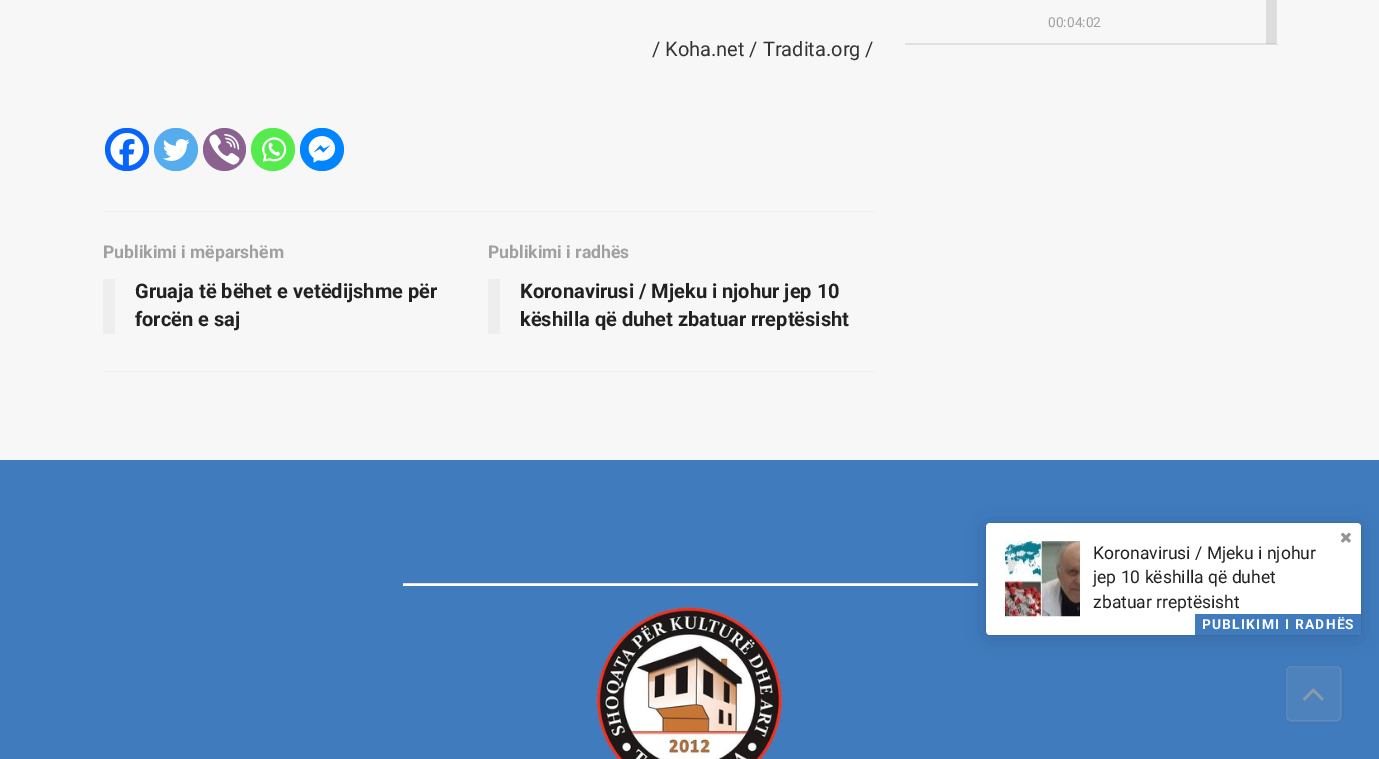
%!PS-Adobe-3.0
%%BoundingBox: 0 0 1379 759
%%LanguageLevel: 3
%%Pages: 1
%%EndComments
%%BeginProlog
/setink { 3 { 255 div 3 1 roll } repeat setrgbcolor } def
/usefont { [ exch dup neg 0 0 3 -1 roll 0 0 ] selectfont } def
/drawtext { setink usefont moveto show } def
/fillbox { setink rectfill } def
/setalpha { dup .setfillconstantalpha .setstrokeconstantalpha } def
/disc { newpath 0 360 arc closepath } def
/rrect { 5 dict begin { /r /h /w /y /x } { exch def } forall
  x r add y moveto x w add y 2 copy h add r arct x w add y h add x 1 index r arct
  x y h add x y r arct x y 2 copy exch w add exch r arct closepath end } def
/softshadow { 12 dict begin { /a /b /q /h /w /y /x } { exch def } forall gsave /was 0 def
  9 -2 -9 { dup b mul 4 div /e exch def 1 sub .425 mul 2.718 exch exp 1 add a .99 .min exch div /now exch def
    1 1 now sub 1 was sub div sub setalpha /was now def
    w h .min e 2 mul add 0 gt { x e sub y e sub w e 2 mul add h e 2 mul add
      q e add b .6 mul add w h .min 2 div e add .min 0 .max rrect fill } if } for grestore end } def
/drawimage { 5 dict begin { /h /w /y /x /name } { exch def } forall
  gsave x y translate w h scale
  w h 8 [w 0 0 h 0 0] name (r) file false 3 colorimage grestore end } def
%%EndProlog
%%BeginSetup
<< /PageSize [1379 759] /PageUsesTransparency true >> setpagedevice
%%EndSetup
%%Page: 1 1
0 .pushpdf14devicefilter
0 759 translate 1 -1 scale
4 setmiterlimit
0 0 1379 759 247 247 247 fillbox
1266 0 10 43 221 221 221 fillbox
1276 0 1 45 224 224 224 fillbox
905 44 373 1 224 224 224 fillbox
905 43 361 1 224 224 224 fillbox
1266 43 10 1 202 202 202 fillbox
(00:04:02) 1048 27 /Roboto-Regular 13.75 160 160 160 drawtext
(/ Koha.net / Tradita.org /) 652 56 /Roboto-Regular 20 51 51 51 drawtext
7 101 254 setink
105 128 44 43 21.5 rrect fill
(assets/img1.rgb) 110 133 34 33 drawimage
85 172 238 setink
154 128 44 43 21.5 rrect fill
(assets/img2.rgb) 163 139 27 22 drawimage
139 98 143 setink
224.5 149.5 21.5 disc fill
(assets/img3.rgb) 209 134 31 31 drawimage
85 235 76 setink
251 128 44 43 21.5 rrect fill
(assets/img4.rgb) 262 137 25 25 drawimage
0 132 255 setink
300 128 44 43 21.5 rrect fill
(assets/img5.rgb) 308 136 28 27 drawimage
103 211 771 1 238 238 238 fillbox
103 371 771 1 238 238 238 fillbox
(Publikimi i mëparshëm) 103 258 /Roboto-Bold 17.5 160 160 160 drawtext
103 279 12 55 238 238 238 fillbox
(Gruaja të bëhet e vetëdijshme për) 135 298 /Roboto-Bold 20 33 33 33 drawtext
(forcën e saj) 135 326 /Roboto-Bold 20 33 33 33 drawtext
(Publikimi i radhës) 488 258 /Roboto-Bold 17.5 160 160 160 drawtext
488 279 12 55 238 238 238 fillbox
(Koronavirusi / Mjeku i njohur jep 10) 520 298 /Roboto-Bold 20 33 33 33 drawtext
(këshilla që duhet zbatuar rreptësisht) 520 326 /Roboto-Bold 20 33 33 33 drawtext
0 460 1379 299 64 123 190 fillbox
403 584 575 2 255 255 255 fillbox
403 583 575 1 224 224 224 fillbox
0 0 0 setink
986 525 375 113 4 12.5 0.15 softshadow
986 523 375 112 4 0.5 0.2 softshadow
255 255 255 setink
986 523 375 112 4 rrect fill
(assets/img6.rgb) 1341 532 10 11 drawimage
(assets/img8.rgb) 1018 541 19 76 drawimage
(assets/img7.rgb) 1005 541 75 76 drawimage
(Koronavirusi / Mjeku i njohur) 1093 559 /Roboto-Regular 17.5 33 33 33 drawtext
(jep 10 këshilla që duhet) 1093 583 /Roboto-Regular 17.5 33 33 33 drawtext
(zbatuar rreptësisht) 1093 608 /Roboto-Regular 17.5 33 33 33 drawtext
1195 614 166 21 64 123 190 fillbox
/Roboto-Bold 13.75 usefont
255 255 255 setink
1202 629 moveto 1.25 0 (PUBLIKIMI I RADHËS) ashow
(assets/img9.rgb) 596 607 187 152 drawimage
0.15 setalpha
157 169 182 setink
1285 665 58 58 6 rrect fill
1 setalpha
92 140 194 setink
1286.5 666.5 54 54 4.5 rrect stroke
0.11 setalpha
13 25 38 setink
1285.5 665.5 57 57 5.5 rrect stroke
1 setalpha
(assets/img10.rgb) 1303 688 21 13 drawimage
.poppdf14devicefilter showpage
%%EOF
